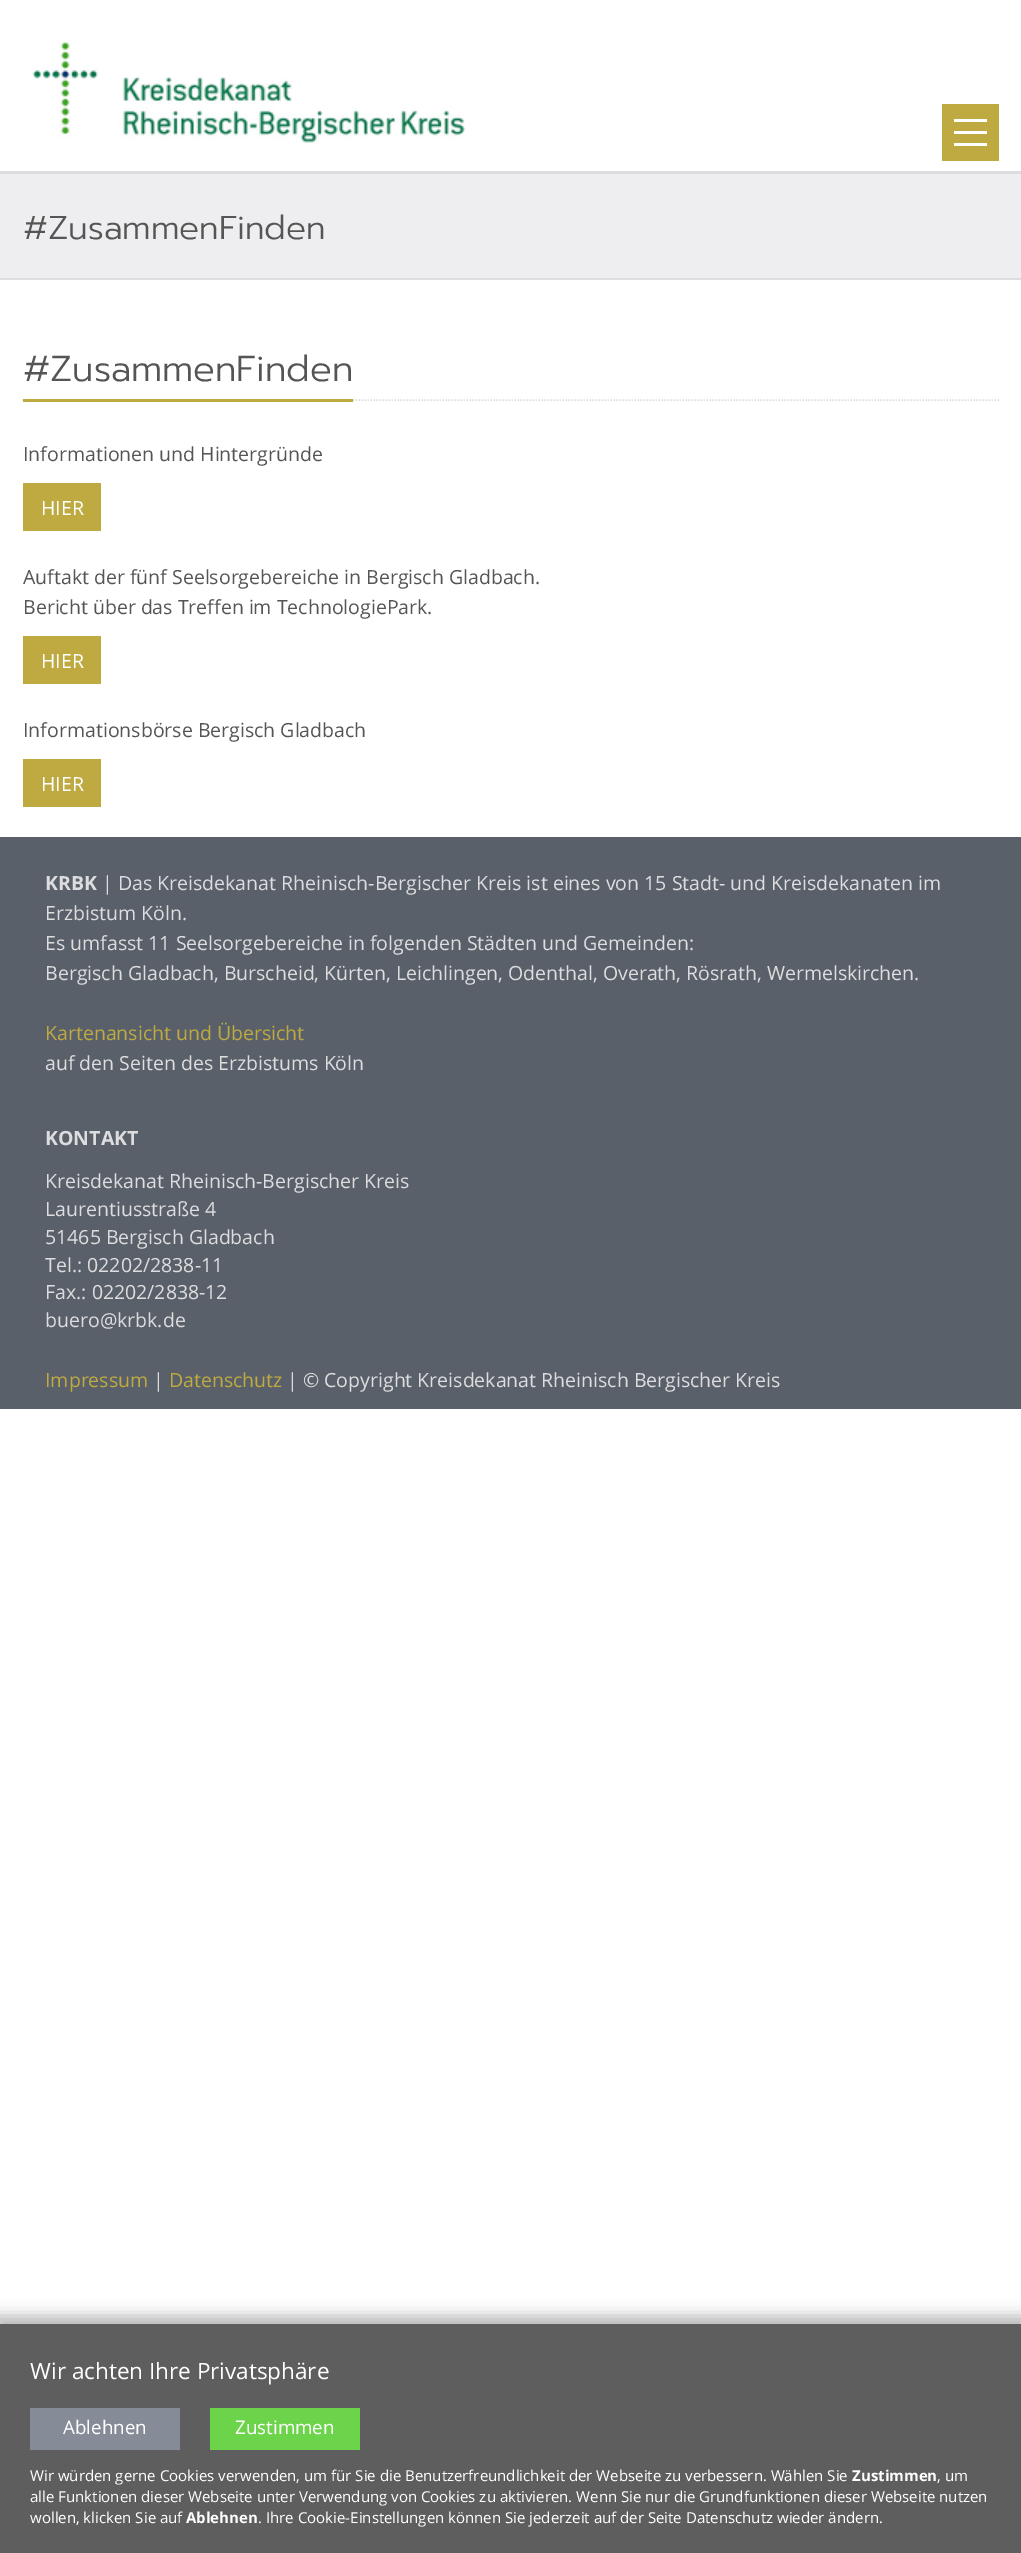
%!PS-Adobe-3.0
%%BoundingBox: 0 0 1021 2553
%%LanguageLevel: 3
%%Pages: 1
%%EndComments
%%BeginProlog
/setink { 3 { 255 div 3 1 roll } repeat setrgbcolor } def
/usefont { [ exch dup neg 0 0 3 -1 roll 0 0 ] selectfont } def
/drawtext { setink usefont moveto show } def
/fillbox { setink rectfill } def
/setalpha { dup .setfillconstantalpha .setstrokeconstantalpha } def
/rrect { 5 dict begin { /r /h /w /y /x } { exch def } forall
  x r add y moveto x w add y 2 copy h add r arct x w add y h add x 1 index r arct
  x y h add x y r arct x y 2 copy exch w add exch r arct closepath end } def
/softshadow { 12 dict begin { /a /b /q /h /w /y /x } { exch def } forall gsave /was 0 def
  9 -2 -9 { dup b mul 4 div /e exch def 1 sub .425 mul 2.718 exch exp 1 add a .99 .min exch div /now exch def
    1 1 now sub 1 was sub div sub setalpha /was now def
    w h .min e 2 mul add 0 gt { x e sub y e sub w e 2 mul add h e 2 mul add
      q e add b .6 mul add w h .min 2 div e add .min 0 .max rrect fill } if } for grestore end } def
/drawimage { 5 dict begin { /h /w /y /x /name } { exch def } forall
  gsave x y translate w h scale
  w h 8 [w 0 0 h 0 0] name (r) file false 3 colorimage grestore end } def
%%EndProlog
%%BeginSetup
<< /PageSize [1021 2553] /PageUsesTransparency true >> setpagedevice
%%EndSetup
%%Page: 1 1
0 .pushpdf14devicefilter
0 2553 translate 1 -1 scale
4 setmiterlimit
0 0 1021 2553 255 255 255 fillbox
(assets/img1.rgb) 32 41 434 102 drawimage
942 104 57 57 190 170 65 fillbox
954 131 33 3 255 255 255 fillbox
954 119 33 3 255 255 255 fillbox
954 143 33 3 255 255 255 fillbox
0 171 1021 3 221 221 223 fillbox
0 174 1021 104 238 238 240 fillbox
0 278 1021 2 221 221 223 fillbox
(#ZusammenFinden) 23 239 /Prompt-Light 33 85 85 85 drawtext
221 221 223 setink
1.5 setlinewidth
[1.5 1.5] 0 setdash
22.5 400 moveto 999 400 lineto stroke
23 399 330 3 190 170 65 fillbox
(#ZusammenFinden) 23 381 /Prompt-Light 36 85 85 85 drawtext
(Informationen und Hintergründe) 23 461 /OpenSans-Regular 19.5 85 85 85 drawtext
23 483 78 48 190 170 65 fillbox
(HIER) 41 515 /OpenSans-Regular 19.5 255 255 255 drawtext
(Auftakt der fünf Seelsorgebereiche in Bergisch Gladbach.) 23 584 /OpenSans-Regular 19.5 85 85 85 drawtext
(Bericht über das Treffen im TechnologiePark.) 23 614 /OpenSans-Regular 19.5 85 85 85 drawtext
23 636 78 48 190 170 65 fillbox
(HIER) 41 668 /OpenSans-Regular 19.5 255 255 255 drawtext
(Informationsbörse Bergisch Gladbach) 23 737 /OpenSans-Regular 19.5 85 85 85 drawtext
23 759 78 48 190 170 65 fillbox
(HIER) 41 791 /OpenSans-Regular 19.5 255 255 255 drawtext
0 837 1021 572 90 96 105 fillbox
(KRBK) 45 890 /OpenSans-Bold 19.5 221 221 223 drawtext
(| Das Kreisdekanat Rheinisch-Bergischer Kreis ist eines von 15 Stadt- und Kreisdekanaten im) 102 890 /OpenSans-Regular 19.5 221 221 223 drawtext
(Erzbistum Köln.) 45 920 /OpenSans-Regular 19.5 221 221 223 drawtext
(Es umfasst 11 Seelsorgebereiche in folgenden Städten und Gemeinden:) 45 950 /OpenSans-Regular 19.5 221 221 223 drawtext
(Bergisch Gladbach, Burscheid, Kürten, Leichlingen, Odenthal, Overath, Rösrath, Wermelskirchen.) 45 980 /OpenSans-Regular 19.5 221 221 223 drawtext
(Kartenansicht und Übersicht) 45 1040 /OpenSans-Regular 19.5 190 170 65 drawtext
(auf den Seiten des Erzbistums Köln) 45 1070 /OpenSans-Regular 19.5 221 221 223 drawtext
(KONTAKT) 45 1145 /OpenSans-Bold 19.5 221 221 223 drawtext
(Kreisdekanat Rheinisch-Bergischer Kreis) 45 1188 /OpenSans-Regular 19.5 221 221 223 drawtext
(Laurentiusstraße 4) 45 1216 /OpenSans-Regular 19.5 221 221 223 drawtext
(51465 Bergisch Gladbach) 45 1244 /OpenSans-Regular 19.5 221 221 223 drawtext
(Tel.: 02202/2838-11) 45 1272 /OpenSans-Regular 19.5 221 221 223 drawtext
(Fax.: 02202/2838-12) 45 1299 /OpenSans-Regular 19.5 221 221 223 drawtext
(buero@krbk.de) 45 1327 /OpenSans-Regular 19.5 221 221 223 drawtext
(Impressum) 45 1387 /OpenSans-Regular 19.5 190 170 65 drawtext
(|) 153 1387 /OpenSans-Regular 19.5 221 221 223 drawtext
(Datenschutz) 169 1387 /OpenSans-Regular 19.5 190 170 65 drawtext
(| © Copyright Kreisdekanat Rheinisch Bergischer Kreis) 287 1387 /OpenSans-Regular 19.5 221 221 223 drawtext
13 13 13 setink
-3 2316 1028 236 0 7.5 0.3 softshadow
0 2324 1021 229 94 94 94 fillbox
(Wir achten Ihre Privatsphäre) 30 2379 /OpenSans-Regular 22.5 255 255 255 drawtext
30 2408 150 42 133 140 151 fillbox
(Ablehnen) 63 2434 /OpenSans-Regular 18.75 255 255 255 drawtext
210 2408 150 42 108 212 75 fillbox
(Zustimmen) 235 2434 /OpenSans-Regular 18.75 255 255 255 drawtext
(Wir würden gerne Cookies verwenden, um für Sie die Benutzerfreundlichkeit der Webseite zu verbessern. Wählen Sie) 30 2481 /OpenSans-Regular 15 255 255 255 drawtext
(Zustimmen) 852 2481 /OpenSans-Bold 15 255 255 255 drawtext
(, um) 937 2481 /OpenSans-Regular 15 255 255 255 drawtext
(alle Funktionen dieser Webseite unter Verwendung von Cookies zu aktivieren. Wenn Sie nur die Grundfunktionen dieser Webseite nutzen) 30 2502 /OpenSans-Regular 15 255 255 255 drawtext
(wollen, klicken Sie auf) 30 2523 /OpenSans-Regular 15 255 255 255 drawtext
(Ablehnen) 186 2523 /OpenSans-Bold 15 255 255 255 drawtext
(. Ihre Cookie-Einstellungen können Sie jederzeit auf der Seite Datenschutz wieder ändern.) 258 2523 /OpenSans-Regular 15 255 255 255 drawtext
.poppdf14devicefilter showpage
%%EOF
